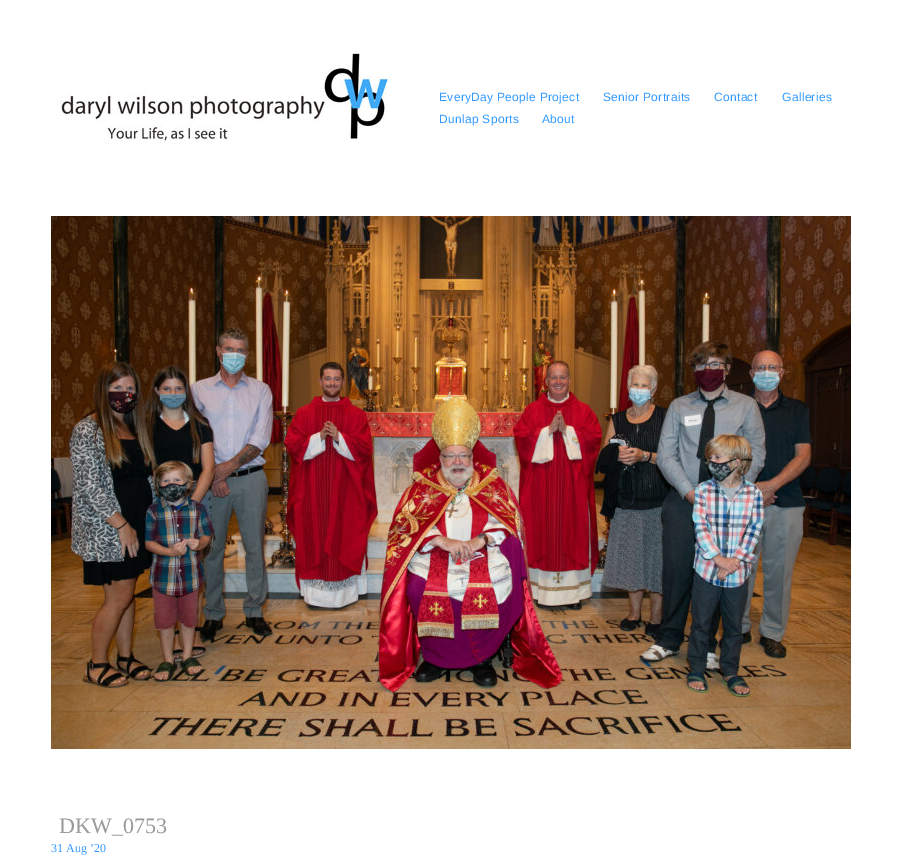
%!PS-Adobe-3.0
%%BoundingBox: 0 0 901 865
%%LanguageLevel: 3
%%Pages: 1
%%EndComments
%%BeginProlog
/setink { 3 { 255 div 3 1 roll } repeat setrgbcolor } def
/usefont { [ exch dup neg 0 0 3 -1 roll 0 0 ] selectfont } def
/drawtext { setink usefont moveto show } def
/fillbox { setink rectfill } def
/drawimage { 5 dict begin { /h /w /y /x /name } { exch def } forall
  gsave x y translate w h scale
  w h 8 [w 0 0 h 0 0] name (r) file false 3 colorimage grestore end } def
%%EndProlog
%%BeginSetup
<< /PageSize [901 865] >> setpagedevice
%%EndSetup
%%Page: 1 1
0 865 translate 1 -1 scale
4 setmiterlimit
0 0 901 865 255 255 255 fillbox
(assets/img1.rgb) 59 52 336 95 drawimage
/LiberationSans-Regular 12 usefont
51 153 255 setink
439 101 moveto 0.3 0 (EveryDay People Project) ashow
603 101 moveto 0.3 0 (Senior Portraits) ashow
714 101 moveto 0.3 0 (Contact) ashow
782 101 moveto 0.3 0 (Galleries) ashow
439 123 moveto 0.3 0 (Dunlap Sports) ashow
542 123 moveto 0.3 0 (About) ashow
(assets/img2.rgb) 51 216 800 533 drawimage
(DKW_0753) 59 833 /LiberationSerif-Regular 22 153 153 153 drawtext
(31 Aug ’20) 51 852 /LiberationSerif-Regular 12 51 153 255 drawtext
showpage
%%EOF
